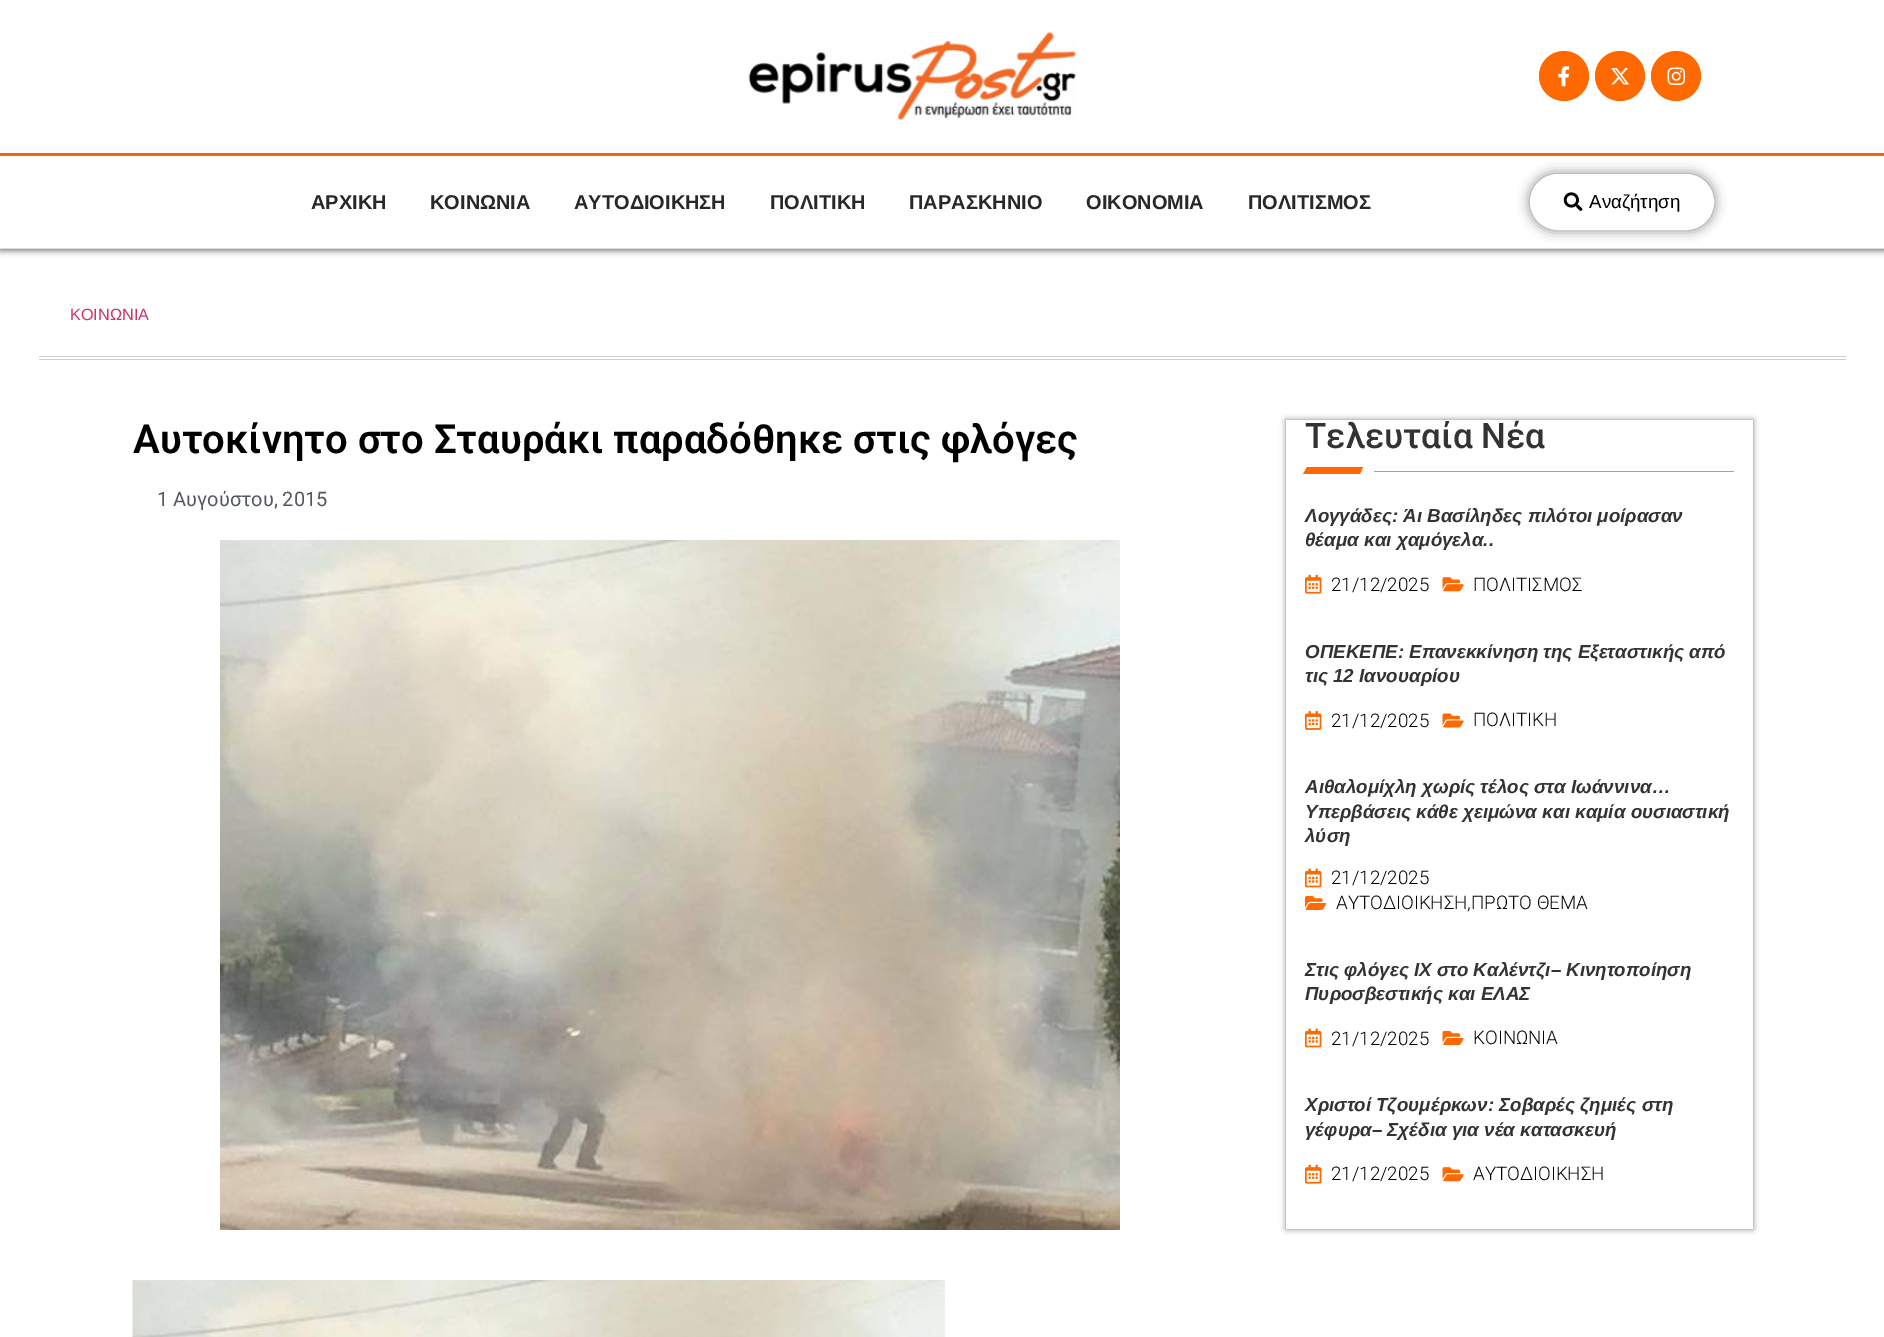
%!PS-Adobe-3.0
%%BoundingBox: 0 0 1884 1337
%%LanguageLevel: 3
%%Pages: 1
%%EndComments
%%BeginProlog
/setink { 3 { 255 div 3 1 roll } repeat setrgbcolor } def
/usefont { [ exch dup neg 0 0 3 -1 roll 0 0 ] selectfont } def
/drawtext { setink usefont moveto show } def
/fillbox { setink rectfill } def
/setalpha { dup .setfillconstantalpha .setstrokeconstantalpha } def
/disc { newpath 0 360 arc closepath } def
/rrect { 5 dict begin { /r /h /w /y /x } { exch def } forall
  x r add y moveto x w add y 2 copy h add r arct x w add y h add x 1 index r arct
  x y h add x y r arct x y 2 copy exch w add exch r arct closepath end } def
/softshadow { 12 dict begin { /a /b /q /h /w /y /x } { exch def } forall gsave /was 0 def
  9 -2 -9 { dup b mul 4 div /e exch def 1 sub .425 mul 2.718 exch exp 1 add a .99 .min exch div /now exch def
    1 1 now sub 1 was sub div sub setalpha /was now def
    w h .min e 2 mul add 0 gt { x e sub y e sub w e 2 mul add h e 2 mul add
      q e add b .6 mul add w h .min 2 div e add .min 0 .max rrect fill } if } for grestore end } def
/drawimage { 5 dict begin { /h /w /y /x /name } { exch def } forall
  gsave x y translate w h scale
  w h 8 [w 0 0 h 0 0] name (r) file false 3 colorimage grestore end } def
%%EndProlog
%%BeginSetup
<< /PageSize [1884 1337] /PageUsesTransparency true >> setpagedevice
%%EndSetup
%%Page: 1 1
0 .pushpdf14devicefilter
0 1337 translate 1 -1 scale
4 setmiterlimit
0 0 1884 1337 255 255 255 fillbox
0 153 1884 3 255 105 0 fillbox
(assets/img1.rgb) 748 32 329 88 drawimage
1564 76 25 disc fill
(assets/img2.rgb) 1558 66 12 21 drawimage
1620 76 25 disc fill
(assets/img3.rgb) 1611 68 18 17 drawimage
1676 76 25 disc fill
(assets/img4.rgb) 1667 67 19 18 drawimage
gsave
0 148 moveto 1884 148 lineto 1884 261 lineto 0 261 lineto closepath 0 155 moveto 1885 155 lineto 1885 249 lineto 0 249 lineto closepath eoclip newpath
0 0 0 setink
0 158 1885 93 0 3 0.5 softshadow
grestore
0 248 1884 1 219 219 219 fillbox
(ΑΡΧΙΚΗ) 311 209 /LiberationSans-Bold 20 40 40 40 drawtext
(ΚΟΙΝΩΝΙΑ) 430 209 /LiberationSans-Bold 20 40 40 40 drawtext
(ΑΥΤΟΔΙΟΙΚΗΣΗ) 574 209 /LiberationSans-Bold 20 40 40 40 drawtext
(ΠΟΛΙΤΙΚΗ) 770 209 /LiberationSans-Bold 20 40 40 40 drawtext
(ΠΑΡΑΣΚΗΝΙΟ) 909 209 /LiberationSans-Bold 20 40 40 40 drawtext
(ΟΙΚΟΝΟΜΙΑ) 1086 209 /LiberationSans-Bold 20 40 40 40 drawtext
(ΠΟΛΙΤΙΣΜΟΣ) 1248 209 /LiberationSans-Bold 20 40 40 40 drawtext
0 0 0 setink
1530 174 184 56 28 6 0.5 softshadow
255 255 255 setink
1532 176 180 52 26 rrect gsave fill grestore
4 setlinewidth
stroke
(assets/img5.rgb) 1563 192 20 19 drawimage
(Αναζήτηση) 1589 208 /LiberationSans-Regular 18.75 0 0 0 drawtext
39 356 1807 1 206 206 206 fillbox
39 359 1807 1 206 206 206 fillbox
(ΚΟΙΝΩΝΙΑ) 70 320 /LiberationSans-Regular 16.25 204 51 102 drawtext
(Αυτοκίνητο στο Σταυράκι παραδόθηκε στις φλόγες) 133 453 /Roboto-SemiBold 40 0 0 0 drawtext
(1 Αυγούστου, 2015) 157 506 /Roboto-Regular 20 84 89 95 drawtext
(assets/img6.rgb) 220 540 900 690 drawimage
(assets/img7.rgb) 132 1280 813 57 drawimage
gsave
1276 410 moveto 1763 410 lineto 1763 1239 lineto 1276 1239 lineto closepath 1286 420 moveto 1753 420 lineto 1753 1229 lineto 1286 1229 lineto closepath eoclip newpath
0 0 0 setink
1286 420 467 809 0 3 0.5 softshadow
grestore
(Τελευταία Νέα) 1305 448 /Roboto-Medium 35 51 51 51 drawtext
255 105 0 setink
1307 467 moveto 1363 467 lineto 1360 474 lineto 1303 474 lineto closepath fill
1374 471 360 1 165 165 165 fillbox
(Λογγάδες: Άι Βασίληδες πιλότοι μοίρασαν) 1305 522 /LiberationSans-BoldItalic 18.75 51 51 51 drawtext
(θέαμα και χαμόγελα..) 1305 546 /LiberationSans-BoldItalic 18.75 51 51 51 drawtext
(assets/img8.rgb) 1305 574 17 20 drawimage
(21/12/2025) 1331 591 /Roboto-Light 18.75 0 0 0 drawtext
(assets/img9.rgb) 1442 577 22 15 drawimage
(ΠΟΛΙΤΙΣΜΟΣ) 1473 591 /Roboto-Light 18.75 0 0 0 drawtext
(ΟΠΕΚΕΠΕ: Επανεκκίνηση της Εξεταστικής από) 1305 658 /LiberationSans-BoldItalic 18.75 51 51 51 drawtext
(τις 12 Ιανουαρίου) 1305 682 /LiberationSans-BoldItalic 18.75 51 51 51 drawtext
(assets/img10.rgb) 1305 711 17 19 drawimage
(21/12/2025) 1331 727 /Roboto-Light 18.75 0 0 0 drawtext
(assets/img11.rgb) 1442 713 22 15 drawimage
(ΠΟΛΙΤΙΚΗ) 1473 726 /Roboto-Light 18.75 0 0 0 drawtext
(Αιθαλομίχλη χωρίς τέλος στα Ιωάννινα…) 1305 793 /LiberationSans-BoldItalic 18.75 51 51 51 drawtext
(Υπερβάσεις κάθε χειμώνα και καμία ουσιαστική) 1305 818 /LiberationSans-BoldItalic 18.75 51 51 51 drawtext
(λύση) 1305 842 /LiberationSans-BoldItalic 18.75 51 51 51 drawtext
(assets/img12.rgb) 1305 868 17 20 drawimage
(21/12/2025) 1331 884 /Roboto-Light 18.75 0 0 0 drawtext
(assets/img13.rgb) 1305 895 22 15 drawimage
(ΑΥΤΟΔΙΟΙΚΗΣΗ,ΠΡΩΤΟ ΘΕΜΑ) 1336 909 /Roboto-Light 18.75 0 0 0 drawtext
(Στις φλόγες ΙΧ στο Καλέντζι– Κινητοποίηση) 1305 976 /LiberationSans-BoldItalic 18.75 51 51 51 drawtext
(Πυροσβεστικής και ΕΛΑΣ) 1305 1000 /LiberationSans-BoldItalic 18.75 51 51 51 drawtext
(assets/img12.rgb) 1305 1028 17 20 drawimage
(21/12/2025) 1331 1045 /Roboto-Light 18.75 0 0 0 drawtext
(assets/img14.rgb) 1442 1030 22 15 drawimage
(ΚΟΙΝΩΝΙΑ) 1473 1044 /Roboto-Light 18.75 0 0 0 drawtext
(Χριστοί Τζουμέρκων: Σοβαρές ζημιές στη) 1305 1111 /LiberationSans-BoldItalic 18.75 51 51 51 drawtext
(γέφυρα– Σχέδια για νέα κατασκευή) 1305 1136 /LiberationSans-BoldItalic 18.75 51 51 51 drawtext
(assets/img8.rgb) 1305 1164 17 20 drawimage
(21/12/2025) 1331 1180 /Roboto-Light 18.75 0 0 0 drawtext
(assets/img9.rgb) 1442 1167 22 15 drawimage
(ΑΥΤΟΔΙΟΙΚΗΣΗ) 1473 1180 /Roboto-Light 18.75 0 0 0 drawtext
.poppdf14devicefilter showpage
%%EOF
